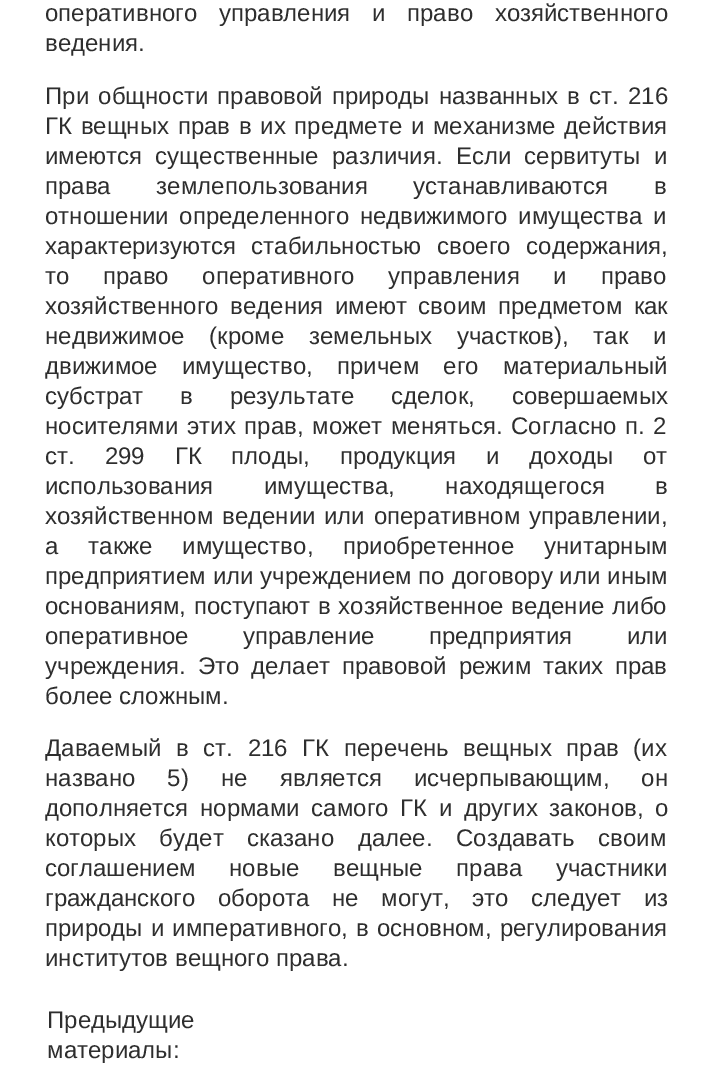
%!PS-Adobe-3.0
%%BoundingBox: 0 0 712 1068
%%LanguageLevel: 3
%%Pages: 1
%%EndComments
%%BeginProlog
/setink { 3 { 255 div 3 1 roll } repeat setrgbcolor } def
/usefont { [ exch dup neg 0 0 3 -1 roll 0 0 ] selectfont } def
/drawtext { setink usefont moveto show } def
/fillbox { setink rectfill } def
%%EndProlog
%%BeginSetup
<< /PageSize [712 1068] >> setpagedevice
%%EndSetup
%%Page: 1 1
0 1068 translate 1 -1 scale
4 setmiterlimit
0 0 712 1068 255 255 255 fillbox
/LiberationSans-Regular 24 usefont
46 46 46 setink
45 21 moveto 15 0 32 (оперативного управления и право хозяйственного) widthshow
(ведения.) 45 51 /LiberationSans-Regular 24 46 46 46 drawtext
45 104 moveto 2.5 0 32 (При общности правовой природы названных в ст. 216) widthshow
45 134 moveto 2 0 32 (ГК вещных прав в их предмете и механизме действия) widthshow
45 164 moveto 6.5 0 32 (имеются существенные различия. Если сервитуты и) widthshow
45 194 moveto 39 0 32 (права землепользования устанавливаются в) widthshow
45 224 moveto 4 0 32 (отношении определенного недвижимого имущества и) widthshow
45 254 moveto 9 0 32 (характеризуются стабильностью своего содержания,) widthshow
45 284 moveto 27 0 32 (то право оперативного управления и право) widthshow
45 314 moveto 4.75 0 32 (хозяйственного ведения имеют своим предметом как) widthshow
45 344 moveto 18 0 32 (недвижимое \(кроме земельных участков\), так и) widthshow
45 374 moveto 17.5 0 32 (движимое имущество, причем его материальный) widthshow
45 404 moveto 30 0 32 (субстрат в результате сделок, совершаемых) widthshow
45 434 moveto 2 0 32 (носителями этих прав, может меняться. Согласно п. 2) widthshow
45 464 moveto 23.25 0 32 (ст. 299 ГК плоды, продукция и доходы от) widthshow
45 494 moveto 44 0 32 (использования имущества, находящегося в) widthshow
45 524 moveto 2 0 32 (хозяйственном ведении или оперативном управлении,) widthshow
45 554 moveto 23.25 0 32 (а также имущество, приобретенное унитарным) widthshow
45 584 moveto 0.25 0 32 (предприятием или учреждением по договору или иным) widthshow
45 614 moveto 1 0 32 (основаниям, поступают в хозяйственное ведение либо) widthshow
45 644 moveto 47.5 0 32 (оперативное управление предприятия или) widthshow
45 674 moveto 5 0 32 (учреждения. Это делает правовой режим таких прав) widthshow
(более сложным.) 45 704 /LiberationSans-Regular 24 46 46 46 drawtext
45 756 moveto 8 0 32 (Даваемый в ст. 216 ГК перечень вещных прав \(их) widthshow
45 786 moveto 25.5 0 32 (названо 5\) не является исчерпывающим, он) widthshow
45 816 moveto 5 0 32 (дополняется нормами самого ГК и других законов, о) widthshow
45 846 moveto 17 0 32 (которых будет сказано далее. Создавать своим) widthshow
45 876 moveto 27 0 32 (соглашением новые вещные права участники) widthshow
45 906 moveto 16 0 32 (гражданского оборота не могут, это следует из) widthshow
45 936 moveto 1.5 0 32 (природы и императивного, в основном, регулирования) widthshow
(институтов вещного права.) 45 966 /LiberationSans-Regular 24 46 46 46 drawtext
(Предыдущие) 47 1028 /LiberationSans-Regular 24 46 46 46 drawtext
(материалы:) 47 1058 /LiberationSans-Regular 24 46 46 46 drawtext
showpage
%%EOF
